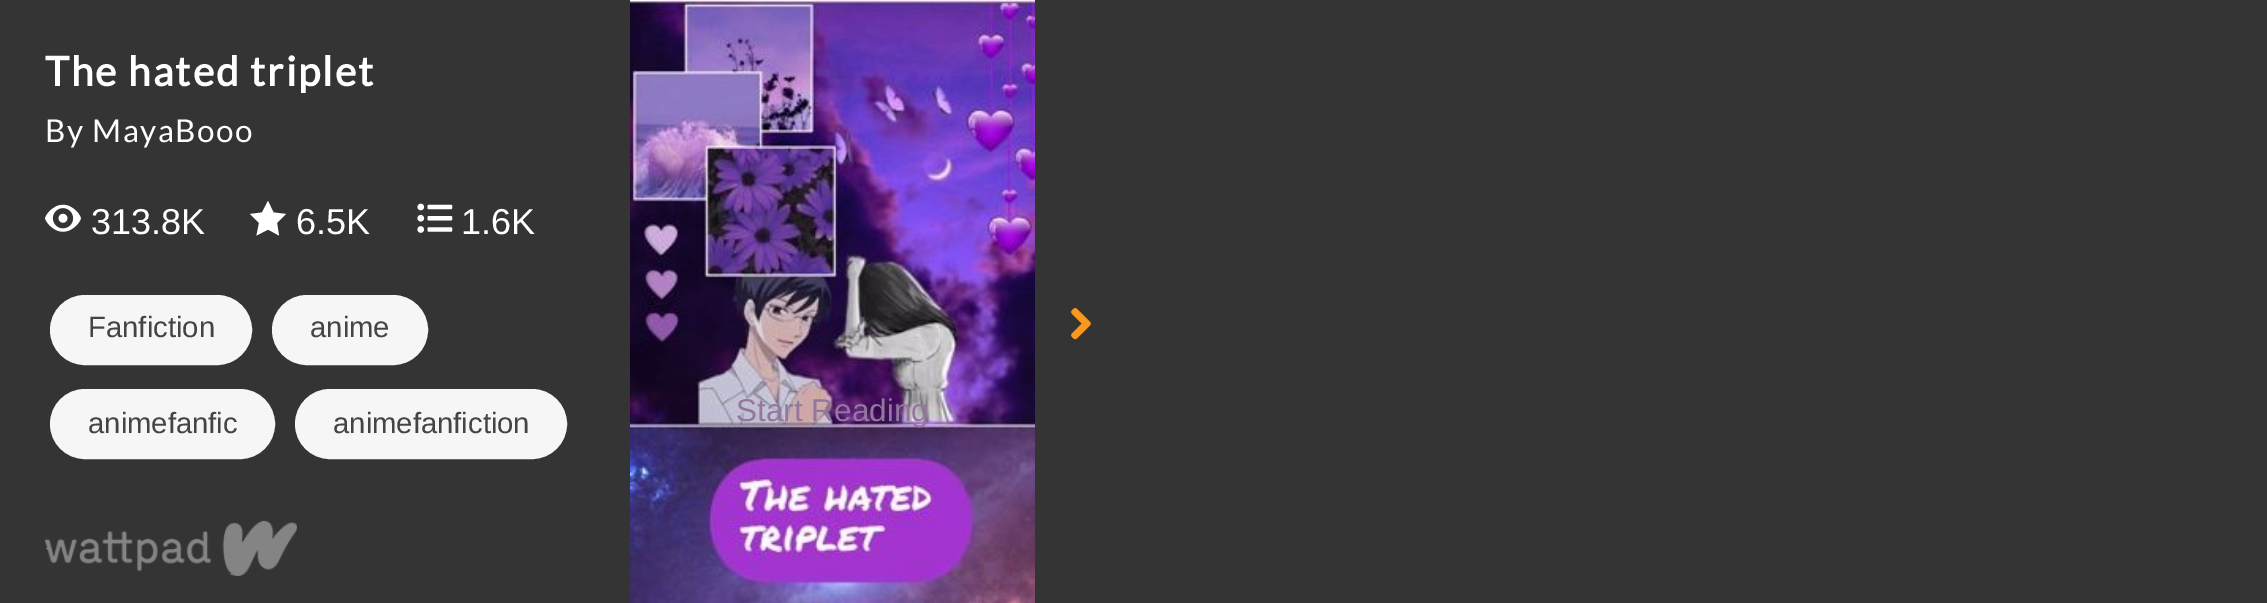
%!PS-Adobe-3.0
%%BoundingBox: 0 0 2267 603
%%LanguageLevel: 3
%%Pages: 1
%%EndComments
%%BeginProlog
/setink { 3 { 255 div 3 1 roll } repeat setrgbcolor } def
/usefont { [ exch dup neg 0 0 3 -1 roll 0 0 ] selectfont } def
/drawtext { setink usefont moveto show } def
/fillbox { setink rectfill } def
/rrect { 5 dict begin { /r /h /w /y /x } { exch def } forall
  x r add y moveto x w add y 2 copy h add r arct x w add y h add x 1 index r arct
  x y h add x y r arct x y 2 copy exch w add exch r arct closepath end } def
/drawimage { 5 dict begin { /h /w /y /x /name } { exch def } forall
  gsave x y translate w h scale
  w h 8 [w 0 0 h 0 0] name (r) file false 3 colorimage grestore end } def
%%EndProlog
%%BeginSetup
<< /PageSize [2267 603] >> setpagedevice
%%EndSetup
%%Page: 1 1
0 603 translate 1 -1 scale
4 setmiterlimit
0 0 2267 603 52 52 52 fillbox
/Lato-Bold 40.5 usefont
255 255 255 setink
45 86 moveto 2 0 (The hated triplet) ashow
/Lato-Regular 31.5 usefont
45 142 moveto 1.5 0 (By MayaBooo) ashow
(assets/img1.rgb) 45 204 36 28 drawimage
(313.8K) 91 234 /LiberationSans-Regular 36 255 255 255 drawtext
268 201 moveto 273.5 212.5 lineto 286 214 lineto 277 223 lineto 279 235.5 lineto 268 229.5 lineto 256.5 235.5 lineto 259 223 lineto 250 214 lineto 262 212.5 lineto closepath fill
(6.5K) 296 234 /LiberationSans-Regular 36 255 255 255 drawtext
(assets/img2.rgb) 417 203 36 30 drawimage
(1.6K) 461 234 /LiberationSans-Regular 36 255 255 255 drawtext
246 246 247 setink
51 296 200 68 34 rrect gsave fill grestore
2 setlinewidth
stroke
(Fanfiction) 88 337 /LiberationSans-Regular 29.25 68 68 68 drawtext
246 246 247 setink
273 296 154 68 34 rrect gsave fill grestore
stroke
(anime) 310 337 /LiberationSans-Regular 29.25 68 68 68 drawtext
246 246 247 setink
51 390 223 68 34 rrect gsave fill grestore
stroke
(animefanfic) 88 433 /LiberationSans-Regular 29.25 68 68 68 drawtext
246 246 247 setink
296 390 270 68 34 rrect gsave fill grestore
stroke
(animefanfiction) 333 433 /LiberationSans-Regular 29.25 68 68 68 drawtext
(assets/img3.rgb) 45 520 252 56 drawimage
(assets/img4.rgb) 1071 308 20 32 drawimage
(assets/img5.rgb) 630 0 405 603 drawimage
(Start Reading) 736 421 /LiberationSans-Regular 31.5 147 119 158 drawtext
showpage
%%EOF
